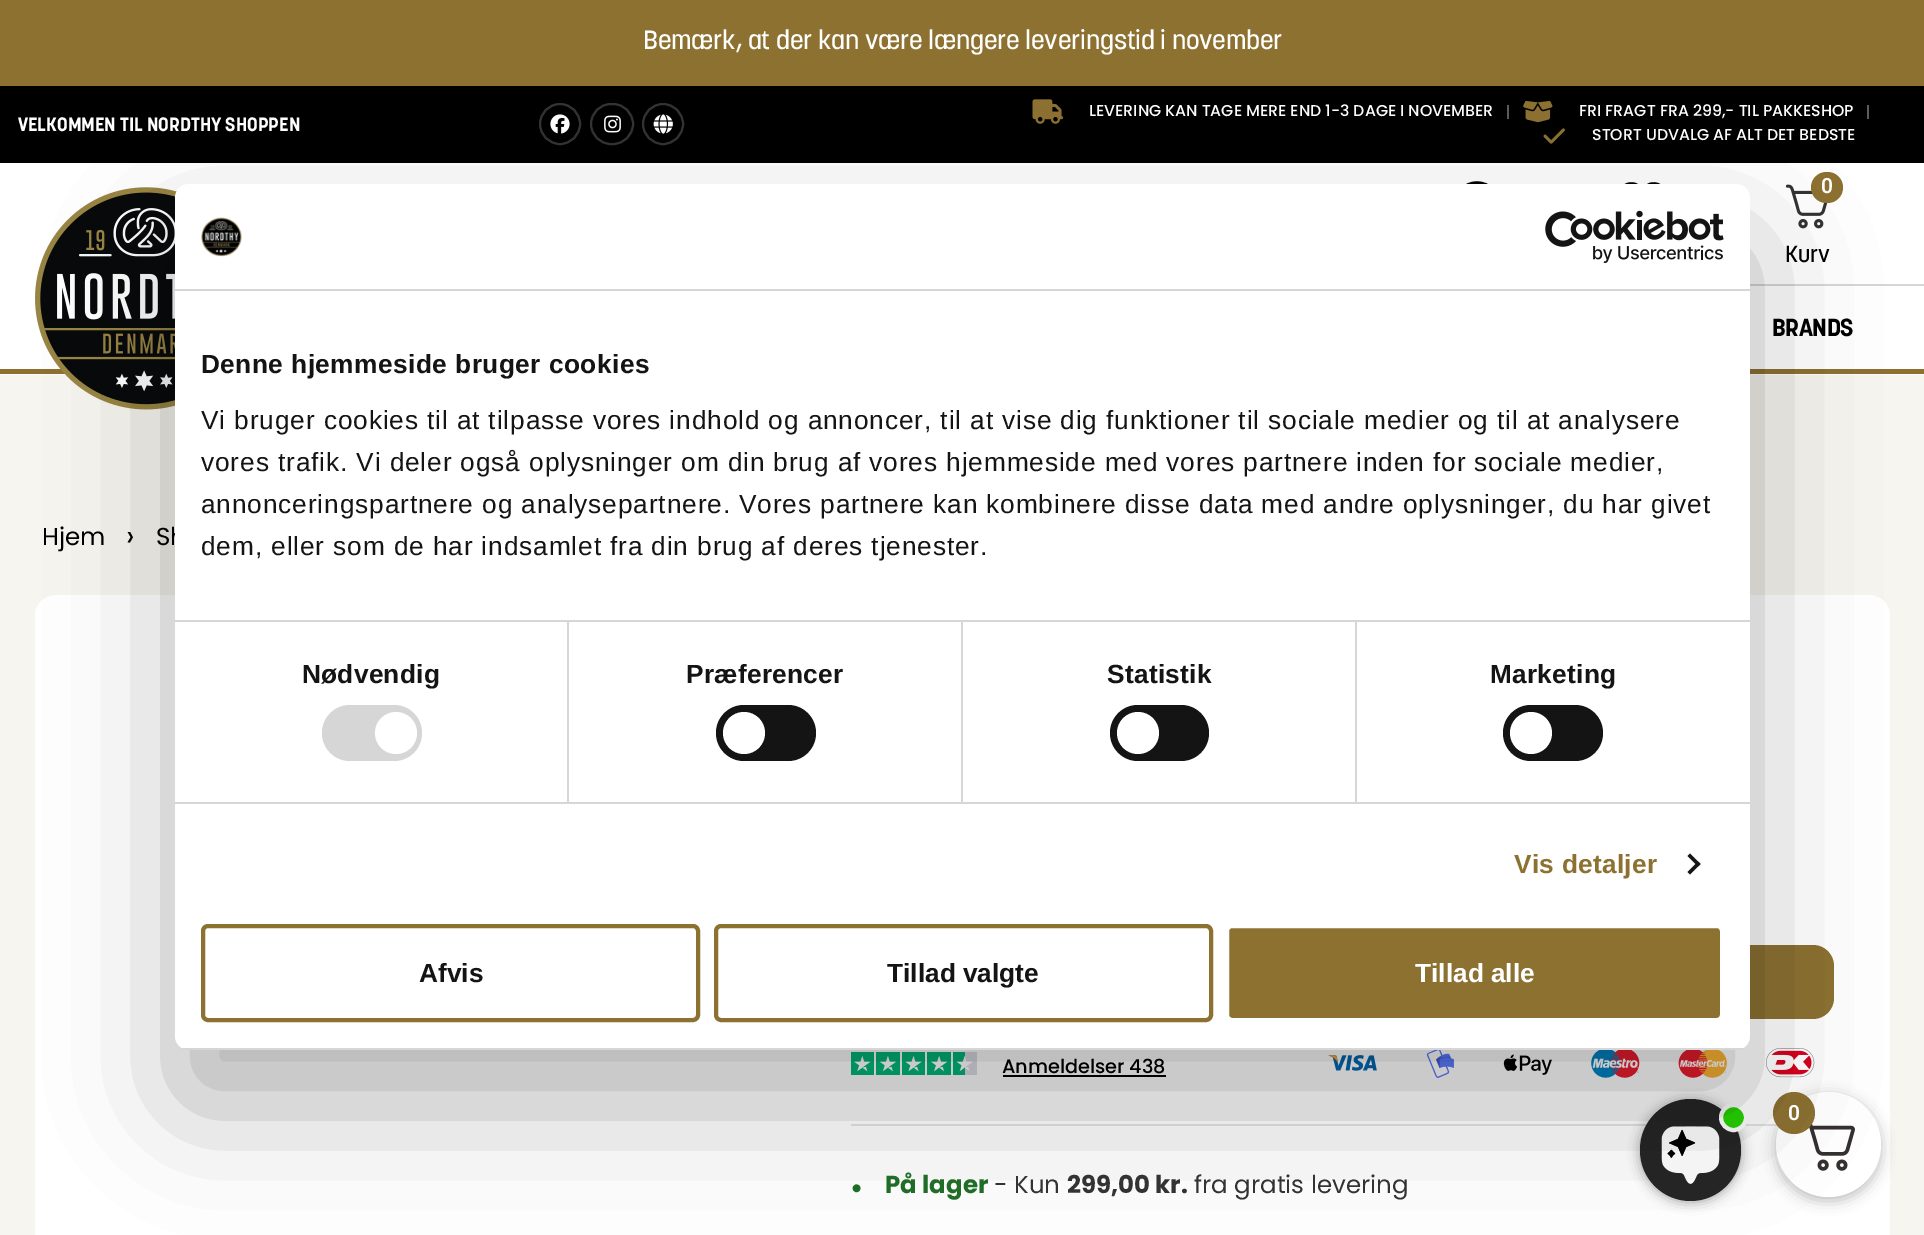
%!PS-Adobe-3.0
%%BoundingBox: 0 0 1924 1235
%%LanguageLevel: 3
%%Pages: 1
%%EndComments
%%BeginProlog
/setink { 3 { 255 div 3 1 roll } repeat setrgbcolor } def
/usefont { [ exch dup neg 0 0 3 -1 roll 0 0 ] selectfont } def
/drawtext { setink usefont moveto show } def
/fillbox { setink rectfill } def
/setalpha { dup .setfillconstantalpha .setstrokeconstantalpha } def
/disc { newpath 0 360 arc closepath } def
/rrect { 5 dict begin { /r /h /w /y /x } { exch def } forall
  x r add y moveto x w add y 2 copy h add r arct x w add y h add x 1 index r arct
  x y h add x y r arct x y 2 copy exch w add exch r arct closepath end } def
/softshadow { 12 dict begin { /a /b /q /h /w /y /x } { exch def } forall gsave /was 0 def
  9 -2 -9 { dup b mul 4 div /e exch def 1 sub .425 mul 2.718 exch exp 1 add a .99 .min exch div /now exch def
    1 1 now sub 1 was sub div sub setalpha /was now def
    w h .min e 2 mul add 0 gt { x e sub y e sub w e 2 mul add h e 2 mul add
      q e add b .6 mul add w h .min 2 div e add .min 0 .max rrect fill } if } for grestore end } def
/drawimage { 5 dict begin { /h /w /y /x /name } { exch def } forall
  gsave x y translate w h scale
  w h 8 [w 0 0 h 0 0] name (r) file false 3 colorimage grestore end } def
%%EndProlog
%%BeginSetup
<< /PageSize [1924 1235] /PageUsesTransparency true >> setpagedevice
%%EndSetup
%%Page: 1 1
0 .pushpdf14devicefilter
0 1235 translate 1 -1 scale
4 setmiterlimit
0 0 1924 1235 247 245 239 fillbox
0 163 1924 212 255 255 255 fillbox
0 0 1924 86 140 113 49 fillbox
/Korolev-Medium 26.25 usefont
255 255 255 setink
643 49 moveto -0.18 0 (Bemærk, at der kan være længere leveringstid i november) ashow
0 86 1924 77 0 0 0 fillbox
(VELKOMMEN TIL NORDTHY SHOPPEN) 18 131 /Korolev-Bold 19.25 255 255 255 drawtext
51 51 51 setink
2 setlinewidth
560 124 20 disc stroke
(assets/img1.rgb) 550 114 20 20 drawimage
591 104 42 40 20 rrect stroke
(assets/img2.rgb) 604 115 17 18 drawimage
663 124 20 disc stroke
(assets/img3.rgb) 653 114 20 20 drawimage
(assets/img4.rgb) 1032 99 32 25 drawimage
(LEVERING KAN TAGE MERE END 1-3 DAGE I NOVEMBER) 1089 116 /Poppins-Medium 15.75 255 255 255 drawtext
1507 105 2 14 91 91 91 fillbox
(assets/img5.rgb) 1523 100 30 23 drawimage
(FRI FRAGT FRA 299,- TIL PAKKESHOP) 1579 116 /Poppins-Medium 15.75 255 255 255 drawtext
1867 105 2 14 91 91 91 fillbox
(assets/img6.rgb) 1543 128 22 16 drawimage
(STORT UDVALG AF ALT DET BEDSTE) 1592 140 /Poppins-Medium 15.75 255 255 255 drawtext
0 369 1924 5 140 113 49 fillbox
(assets/img7.rgb) 35 187 142 223 drawimage
0 0 0 setink
3.3 setlinewidth
1477 205 22 disc stroke
3.6 setlinewidth
1 setlinecap
1 setlinejoin
1632 184 moveto 1626 184 1620 187 1620 195.5 curveto 1620 203.5 1633.5 215.5 1642.5 224 curveto 1651 215.5 1664.5 203.5 1664.5 195.5 curveto 1664.5 187 1659 184 1653 184 curveto 1648.5 184 1645 187.5 1642.5 191.5 curveto 1640 187.5 1636.5 184 1632 184 curveto closepath stroke
(assets/img8.rgb) 1785 184 43 45 drawimage
140 113 49 setink
1811 172 32 31 15.5 rrect fill
(0) 1821 193 /Roboto-SemiBold 21 255 255 255 drawtext
(Kurv) 1785 262 /Korolev-Medium 23 0 0 0 drawtext
1750 284 174 2 214 214 214 fillbox
/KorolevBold-Bold 24.5 usefont
0 0 0 setink
1772 336 moveto -0.5 0 (BRANDS) ashow
255 255 255 setink
56 595 moveto 795 595 lineto 795 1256 lineto 56 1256 lineto 44.5 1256 35 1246.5 35 1235 curveto 35 616 lineto 35 604.5 44.5 595 56 595 curveto closepath fill
795 595 moveto 1869 595 lineto 1880.5 595 1890 604.5 1890 616 curveto 1890 1235 lineto 1890 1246.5 1880.5 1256 1869 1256 curveto 795 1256 lineto closepath fill
140 113 49 setink
970 945 864 74 21 rrect fill
851 1124 927 2 228 228 228 fillbox
(assets/img11.rgb) 851 1052 126 23 drawimage
1003 1075 163 2 0 0 0 fillbox
(assets/img12.rgb) 1328 1055 49 16 drawimage
(assets/img13.rgb) 1426 1050 28 28 drawimage
(assets/img14.rgb) 1503 1054 49 21 drawimage
(assets/img15.rgb) 1591 1050 49 28 drawimage
(assets/img16.rgb) 1678 1050 49 28 drawimage
(assets/img17.rgb) 1766 1048 49 30 drawimage
1640 1101 101 101 50.5 6 0.35 softshadow
37 37 37 setink
1640 1099 101 102 50.5 rrect fill
(assets/img18.rgb) 1661 1126 59 58 drawimage
37 211 0 setink
1733.5 1117.5 12.5 disc gsave fill grestore
255 255 255 setink
4 setlinewidth
0 setlinecap
0 setlinejoin
stroke
0 0 0 setink
1776 1096 105 105 52.5 7 0.25 softshadow
255 255 255 setink
1828.5 1144.5 52.5 disc fill
(assets/img19.rgb) 1809 1123 46 48 drawimage
140 113 49 setink
1794 1113 21 disc fill
0 0 0 setink
175 240 1575 866 14 59.5 0.3 softshadow
(Sh) 156 545 /Poppins-Regular 24.5 0 0 0 drawtext
255 255 255 setink
175 184 1575 866 14 rrect fill
175 289 1575 2 214 214 214 fillbox
(assets/img9.rgb) 201 217 41 40 drawimage
(assets/img10.rgb) 1545 210 179 53 drawimage
567 621 2 181 214 214 214 fillbox
961 621 2 181 214 214 214 fillbox
1355 621 2 181 214 214 214 fillbox
175 620 1575 2 214 214 214 fillbox
/LiberationSans-Bold 26.25 usefont
20 20 20 setink
201 373 moveto 0.45 0 (Denne hjemmeside bruger cookies) ashow
/LiberationSans-Regular 26.25 usefont
201 429 moveto 0.88 0 (Vi bruger cookies til at tilpasse vores indhold og annoncer, til at vise dig funktioner til sociale medier og til at analysere) ashow
201 471 moveto 0.88 0 (vores trafik. Vi deler også oplysninger om din brug af vores hjemmeside med vores partnere inden for sociale medier,) ashow
201 513 moveto 0.88 0 (annonceringspartnere og analysepartnere. Vores partnere kan kombinere disse data med andre oplysninger, du har givet) ashow
201 555 moveto 0.88 0 (dem, eller som de har indsamlet fra din brug af deres tjenester.) ashow
175 802 1575 2 214 214 214 fillbox
/LiberationSans-Bold 26.25 usefont
20 20 20 setink
302 683 moveto 0.25 0 (Nødvendig) ashow
214 214 214 setink
322 705 100 56 28 rrect fill
255 255 255 setink
396 733 21 disc fill
20 20 20 setink
686 683 moveto 0.25 0 (Præferencer) ashow
716 705 100 56 28 rrect fill
255 255 255 setink
744 733 21 disc fill
20 20 20 setink
1107 683 moveto 0.25 0 (Statistik) ashow
1110 705 99 56 28 rrect fill
255 255 255 setink
1138 733 21 disc fill
20 20 20 setink
1490 683 moveto 0.25 0 (Marketing) ashow
1503 705 100 56 28 rrect fill
255 255 255 setink
1531 733 21 disc fill
140 113 49 setink
1514 873 moveto 0.25 0 (Vis detaljer) ashow
20 20 20 setink
1690 853.5 moveto 1700.5 864 lineto 1698 866.5 lineto 1687.5 856 lineto closepath fill
1698 861.5 moveto 1700.5 864 lineto 1690 874.5 lineto 1687.5 872 lineto closepath fill
gsave
175 184 1575 866 14 rrect clip newpath
175 1048 1575 2 214 214 214 fillbox
grestore
140 113 49 setink
203 926 495 94 5 rrect stroke
(Afvis) 419 982 /LiberationSans-Bold 26.25 20 20 20 drawtext
140 113 49 setink
716 926 495 94 5 rrect stroke
(Tillad valgte) 887 982 /LiberationSans-Bold 26.25 20 20 20 drawtext
140 113 49 setink
1227 926 495 94 5 rrect gsave fill grestore
255 255 255 setink
stroke
(Tillad alle) 1415 982 /LiberationSans-Bold 26.25 255 255 255 drawtext
(Hjem) 42 545 /Poppins-Regular 24.5 0 0 0 drawtext
(›) 126 546 /Poppins-Regular 30 0 0 0 drawtext
(Anmeldelser 438) 1002 1073 /Poppins-Medium 19.25 0 0 0 drawtext
(•) 850 1197 /Poppins-Bold 26.25 31 109 39 drawtext
(På lager) 885 1193 /Poppins-Bold 24.5 31 109 39 drawtext
(- Kun) 994 1193 /Poppins-Regular 24.5 51 51 51 drawtext
(299,00 kr.) 1067 1193 /Poppins-Bold 24.5 51 51 51 drawtext
(fra gratis levering) 1194 1193 /Poppins-Regular 24.5 51 51 51 drawtext
(0) 1788 1120 /Roboto-SemiBold 21 255 255 255 drawtext
.poppdf14devicefilter showpage
%%EOF
